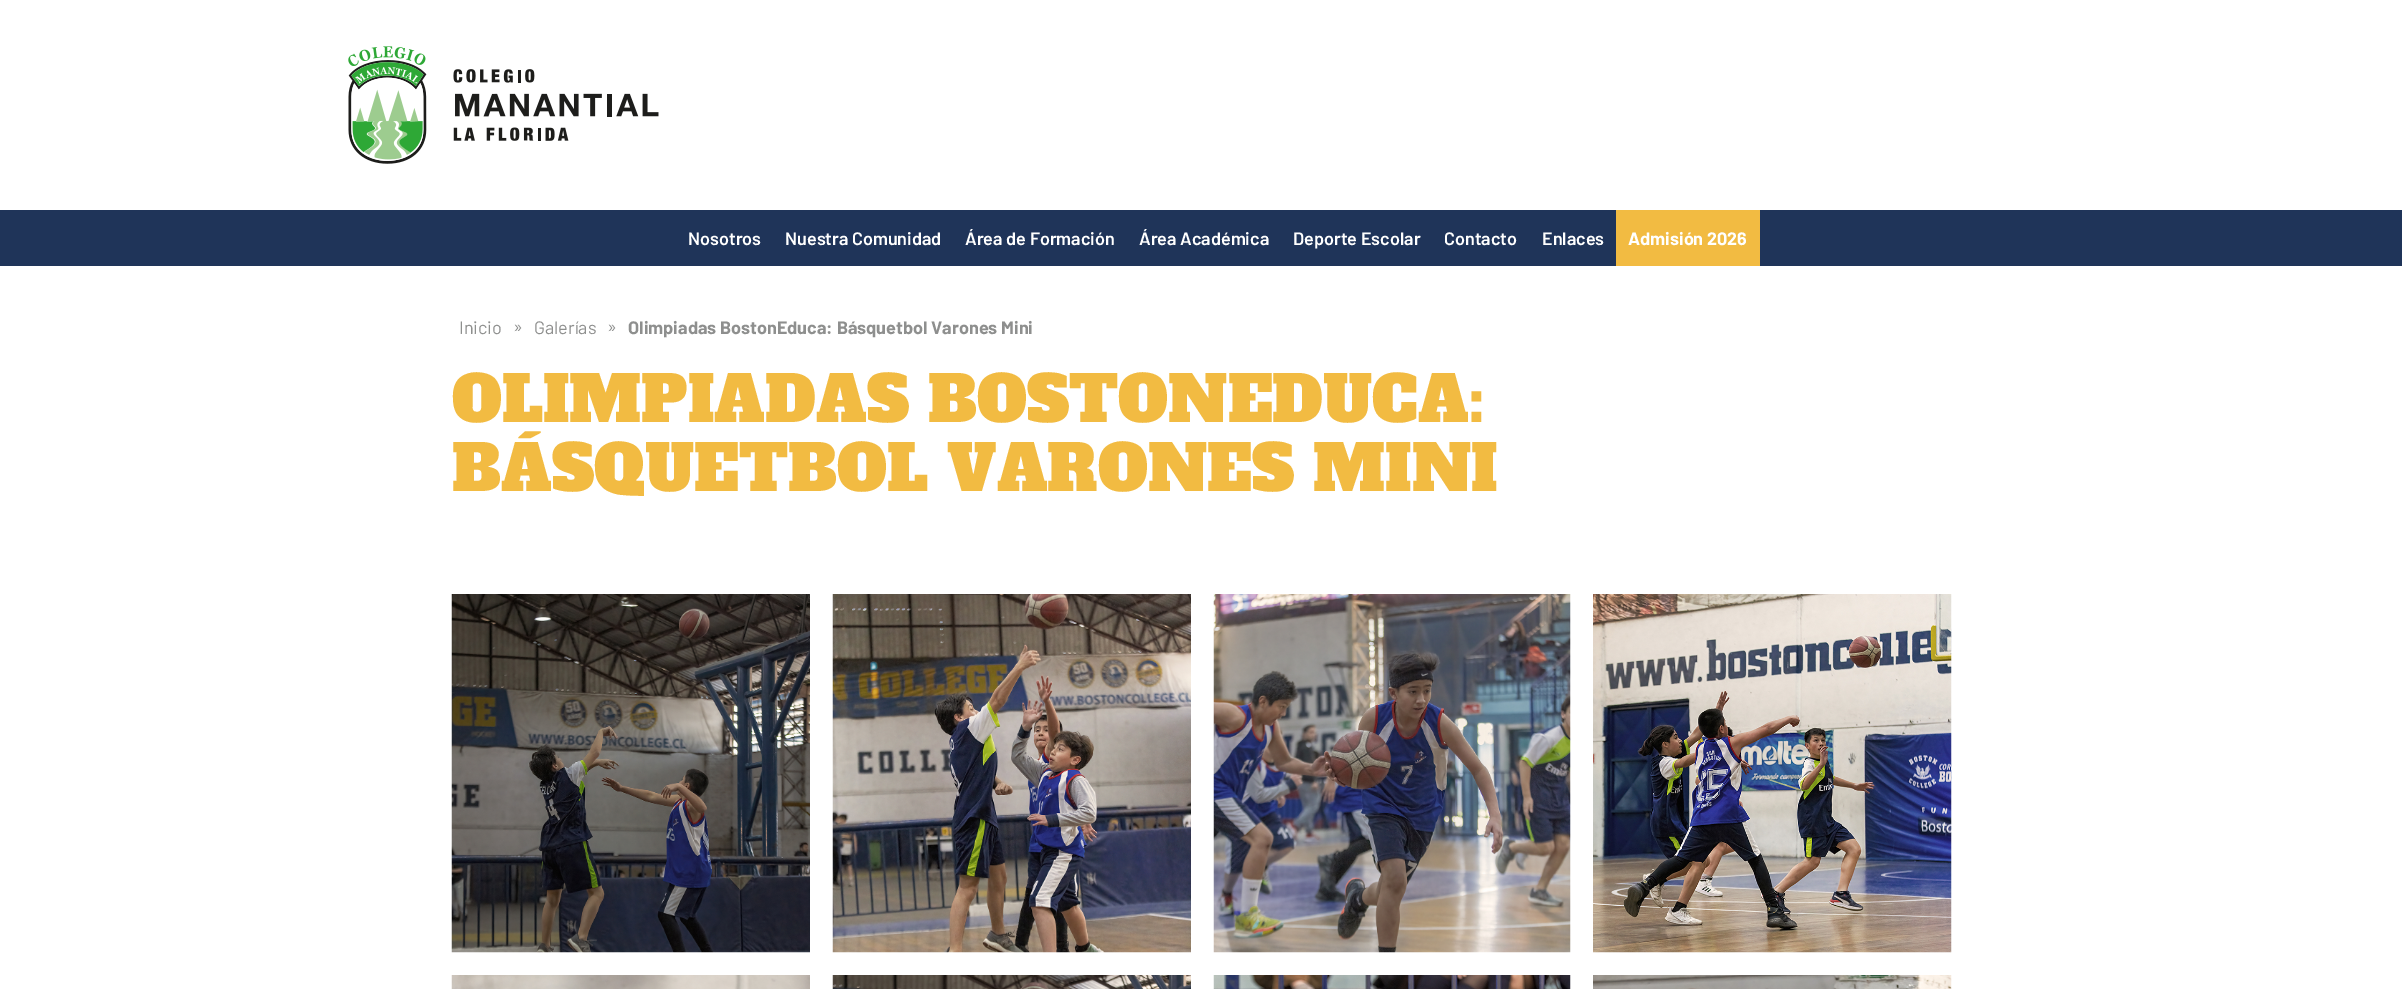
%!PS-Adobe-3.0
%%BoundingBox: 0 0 2402 989
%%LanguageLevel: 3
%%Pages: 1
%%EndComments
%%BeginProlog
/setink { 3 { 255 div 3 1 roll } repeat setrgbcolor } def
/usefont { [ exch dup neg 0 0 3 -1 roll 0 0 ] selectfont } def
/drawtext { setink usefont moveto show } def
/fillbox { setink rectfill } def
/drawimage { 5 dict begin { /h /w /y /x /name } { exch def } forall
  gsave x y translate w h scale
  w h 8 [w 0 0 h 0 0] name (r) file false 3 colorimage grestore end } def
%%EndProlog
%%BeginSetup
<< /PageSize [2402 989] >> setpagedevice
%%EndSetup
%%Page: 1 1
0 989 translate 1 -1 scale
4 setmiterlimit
0 0 2402 989 255 255 255 fillbox
(assets/img1.rgb) 348 46 311 118 drawimage
0 210 2402 56 31 52 89 fillbox
(Nosotros) 688 245 /Barlow-SemiBold 18 255 255 255 drawtext
(Nuestra Comunidad) 785 245 /Barlow-SemiBold 18 255 255 255 drawtext
(Área de Formación) 965 245 /Barlow-SemiBold 18 255 255 255 drawtext
(Área Académica) 1139 245 /Barlow-SemiBold 18 255 255 255 drawtext
(Deporte Escolar) 1293 245 /Barlow-SemiBold 18 255 255 255 drawtext
(Contacto) 1444 245 /Barlow-SemiBold 18 255 255 255 drawtext
(Enlaces) 1542 245 /Barlow-SemiBold 18 255 255 255 drawtext
1616 210 144 56 242 187 66 fillbox
(Admisión 2026) 1628 245 /Barlow-Bold 18 255 255 255 drawtext
(Inicio) 459 334 /Barlow-Regular 18 142 143 142 drawtext
(») 513 333 /Barlow-Regular 18 142 143 142 drawtext
(Galerías) 534 334 /Barlow-Regular 18 142 143 142 drawtext
(») 607 333 /Barlow-Regular 18 142 143 142 drawtext
(Olimpiadas BostonEduca: Básquetbol Varones Mini) 628 334 /Barlow-Bold 18 142 143 142 drawtext
(OLIMPIADAS BOSTONEDUCA:) 452 422 /AlfaSlabOne-Regular 63 242 187 66 drawtext
(BÁSQUETBOL VARONES MINI) 452 491 /AlfaSlabOne-Regular 63 242 187 66 drawtext
(assets/img2.rgb) 451 594 359 359 drawimage
(assets/img3.rgb) 832 594 359 359 drawimage
(assets/img4.rgb) 1213 594 358 359 drawimage
(assets/img5.rgb) 1593 594 359 359 drawimage
(assets/img6.rgb) 451 975 359 14 drawimage
(assets/img7.rgb) 832 975 359 14 drawimage
(assets/img8.rgb) 1213 975 358 14 drawimage
(assets/img9.rgb) 1593 975 359 14 drawimage
showpage
%%EOF
